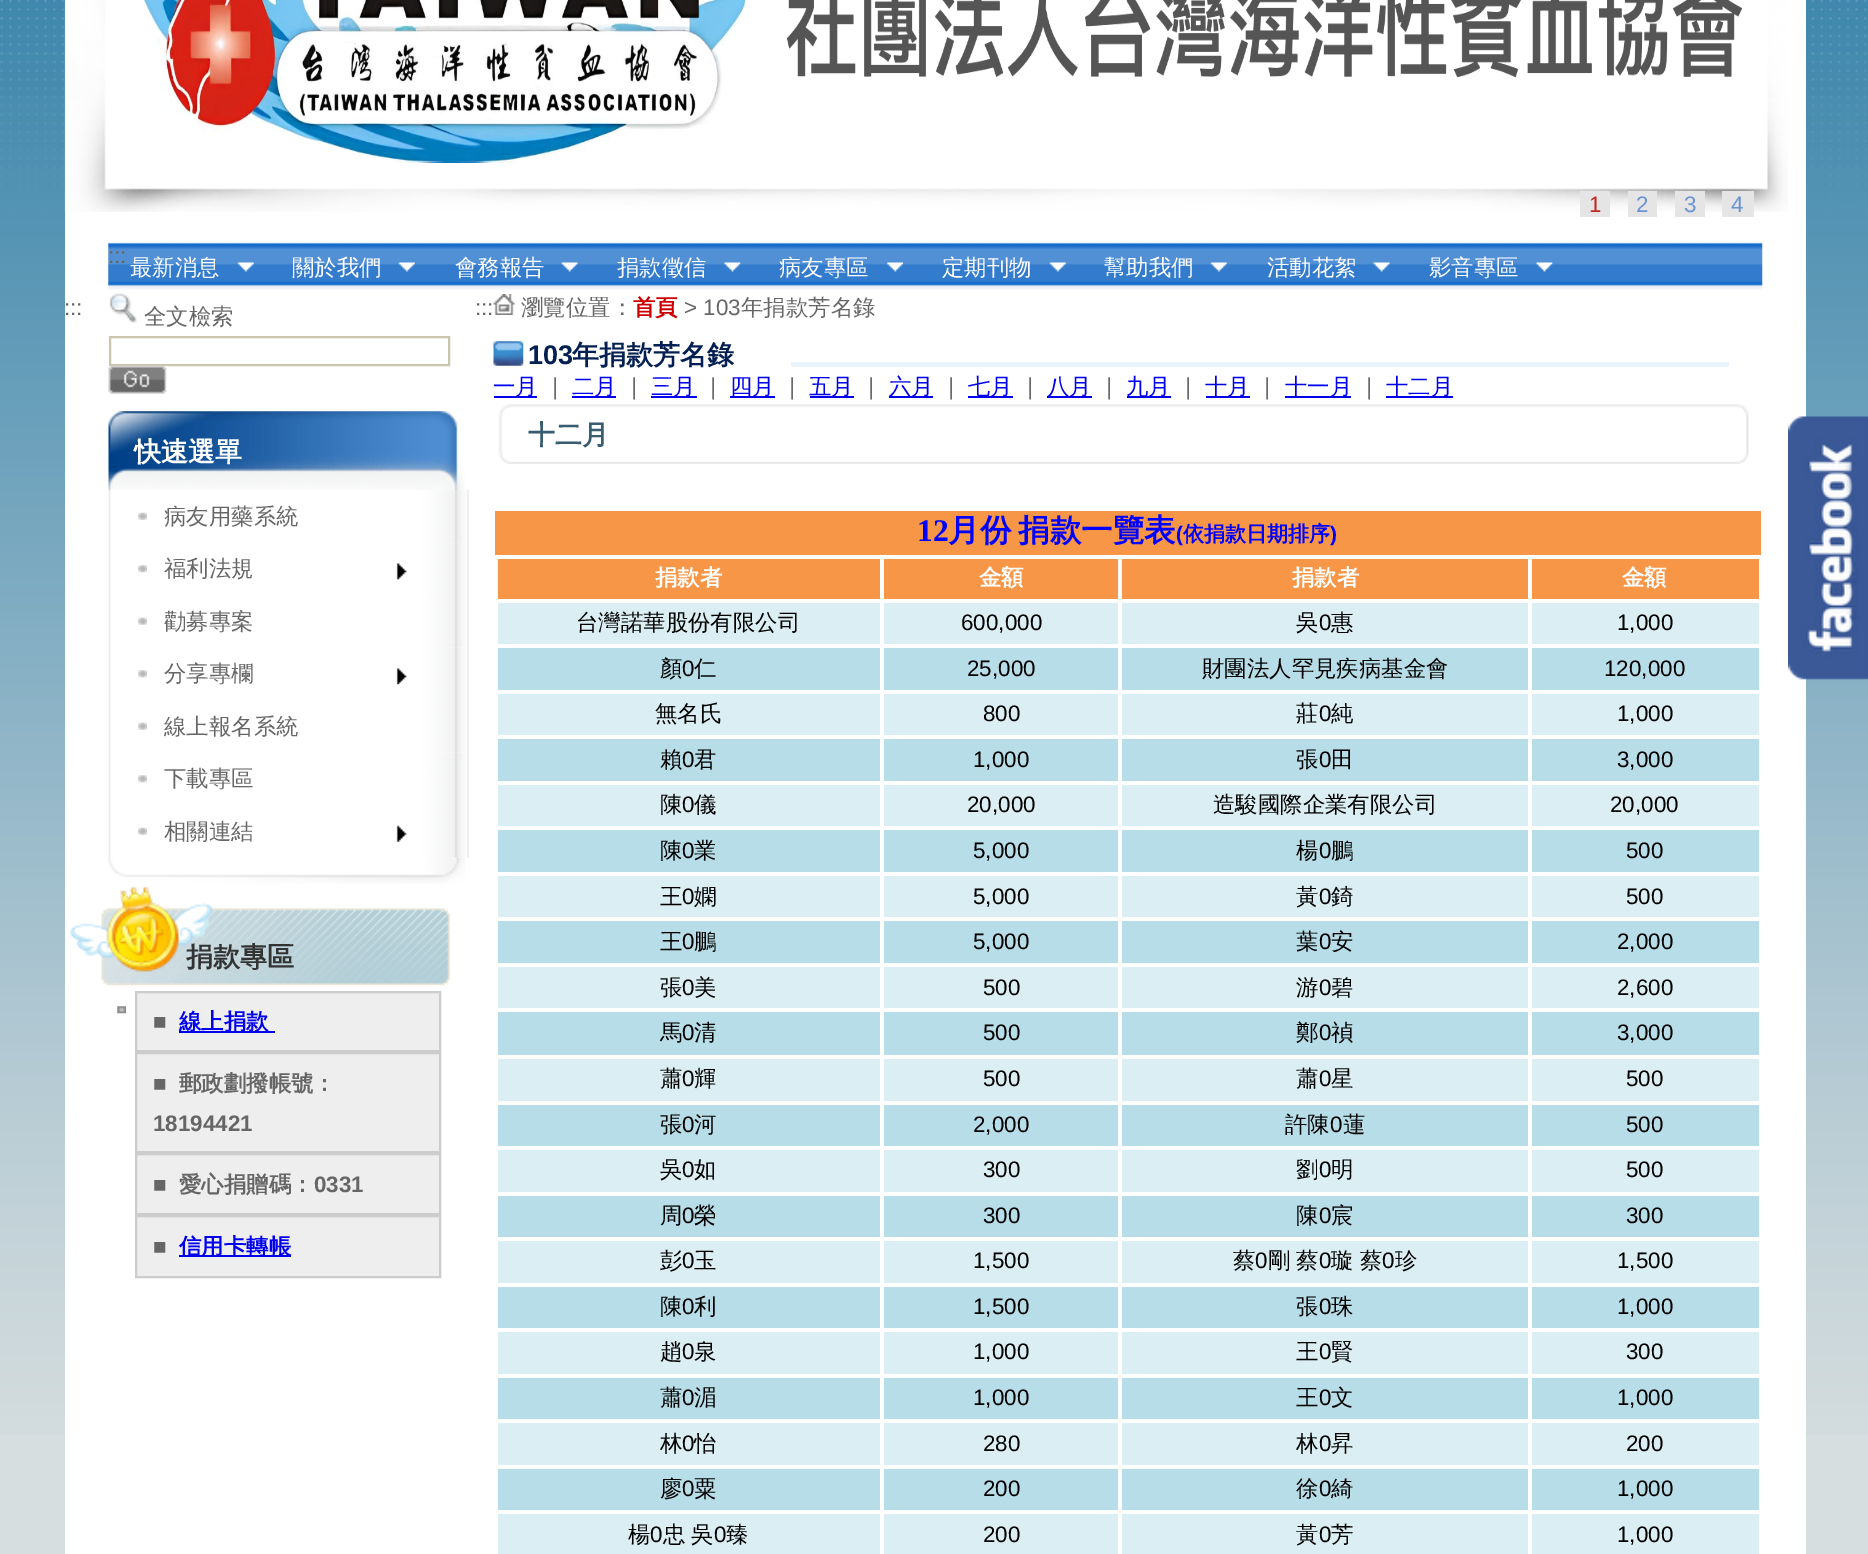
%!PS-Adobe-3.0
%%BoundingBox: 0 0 1868 1554
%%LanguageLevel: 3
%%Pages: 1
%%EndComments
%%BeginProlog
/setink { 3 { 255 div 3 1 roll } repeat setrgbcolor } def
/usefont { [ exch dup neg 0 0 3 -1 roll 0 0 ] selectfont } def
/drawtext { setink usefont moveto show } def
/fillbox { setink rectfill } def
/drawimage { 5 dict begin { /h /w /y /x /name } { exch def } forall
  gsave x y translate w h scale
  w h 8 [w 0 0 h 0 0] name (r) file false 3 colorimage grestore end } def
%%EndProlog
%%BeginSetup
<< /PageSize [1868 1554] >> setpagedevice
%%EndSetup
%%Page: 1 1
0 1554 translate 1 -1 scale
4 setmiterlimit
0 0 1868 1554 215 222 223 fillbox
(assets/img1.rgb) 0 0 1868 1435 drawimage
65 0 1741 1554 255 255 255 fillbox
(assets/img2.rgb) 64 0 1724 212 drawimage
(assets/img3.rgb) 140 0 1603 163 drawimage
1580 191 30 26 229 229 229 fillbox
(1) 1589 212 /LiberationSans-Regular 22.4 198 38 31 drawtext
1628 191 29 26 229 229 229 fillbox
(2) 1636 212 /LiberationSans-Regular 22.4 106 147 212 drawtext
1675 191 30 26 229 229 229 fillbox
(3) 1684 212 /LiberationSans-Regular 22.4 106 147 212 drawtext
1722 191 32 26 229 229 229 fillbox
(4) 1731 212 /LiberationSans-Regular 22.4 106 147 212 drawtext
(assets/img4.rgb) 108 242 1655 48 drawimage
(:::) 108 263 /LiberationSans-Regular 22.4 102 102 102 drawtext
(assets/img5.rgb) 108 242 1 46 drawimage
(最新消息) 130 275 /WenQuanYiZenHei-Medium 22.4 255 255 255 drawtext
(assets/img6.rgb) 237 262 17 10 drawimage
(關於我們) 292 275 /WenQuanYiZenHei-Medium 22.4 255 255 255 drawtext
(assets/img6.rgb) 398 262 17 10 drawimage
(會務報告) 455 275 /WenQuanYiZenHei-Medium 22.4 255 255 255 drawtext
(assets/img7.rgb) 561 262 17 10 drawimage
(捐款徵信) 617 275 /WenQuanYiZenHei-Medium 22.4 255 255 255 drawtext
(assets/img8.rgb) 724 262 17 10 drawimage
(病友專區) 779 275 /WenQuanYiZenHei-Medium 22.4 255 255 255 drawtext
(assets/img9.rgb) 886 262 17 10 drawimage
(定期刊物) 942 275 /WenQuanYiZenHei-Medium 22.4 255 255 255 drawtext
(assets/img6.rgb) 1049 262 17 10 drawimage
(幫助我們) 1104 275 /WenQuanYiZenHei-Medium 22.4 255 255 255 drawtext
(assets/img6.rgb) 1210 262 17 10 drawimage
(活動花絮) 1267 275 /WenQuanYiZenHei-Medium 22.4 255 255 255 drawtext
(assets/img10.rgb) 1373 262 17 10 drawimage
(影音專區) 1429 275 /WenQuanYiZenHei-Medium 22.4 255 255 255 drawtext
(assets/img11.rgb) 1536 262 17 10 drawimage
(:::) 64 315 /LiberationSans-Regular 22.4 102 102 102 drawtext
(assets/img12.rgb) 109 293 28 30 drawimage
(全文檢索) 144 324 /WenQuanYiZenHei-Medium 22.4 102 102 102 drawtext
201 197 175 setink
2 setlinewidth
110 337 339 28 rectstroke
(assets/img13.rgb) 108 365 59 29 drawimage
(assets/img14.rgb) 108 411 357 79 drawimage
(快速選單) 134 461 /WenQuanYiZenHei-Bold 27 255 255 255 drawtext
(assets/img15.rgb) 108 857 358 27 drawimage
(assets/img16.rgb) 108 490 361 53 drawimage
(assets/img17.rgb) 138 512 9 8 drawimage
(病友用藥系統) 164 524 /WenQuanYiZenHei-Medium 22.4 102 102 102 drawtext
(assets/img18.rgb) 108 542 361 53 drawimage
(assets/img19.rgb) 138 565 9 8 drawimage
(福利法規) 164 576 /WenQuanYiZenHei-Medium 22.4 102 102 102 drawtext
(assets/img20.rgb) 396 563 11 17 drawimage
(assets/img16.rgb) 108 595 361 53 drawimage
(assets/img17.rgb) 138 617 9 8 drawimage
(勸募專案) 164 629 /WenQuanYiZenHei-Medium 22.4 102 102 102 drawtext
(assets/img21.rgb) 108 647 361 53 drawimage
(assets/img19.rgb) 138 670 9 8 drawimage
(分享專欄) 164 681 /WenQuanYiZenHei-Medium 22.4 102 102 102 drawtext
(assets/img20.rgb) 396 668 11 17 drawimage
(assets/img16.rgb) 108 700 361 53 drawimage
(assets/img17.rgb) 138 722 9 8 drawimage
(線上報名系統) 164 734 /WenQuanYiZenHei-Medium 22.4 102 102 102 drawtext
(assets/img18.rgb) 108 752 361 53 drawimage
(assets/img19.rgb) 138 775 9 8 drawimage
(下載專區) 164 786 /WenQuanYiZenHei-Medium 22.4 102 102 102 drawtext
(assets/img22.rgb) 108 805 361 53 drawimage
(assets/img17.rgb) 138 827 9 8 drawimage
(相關連結) 164 839 /WenQuanYiZenHei-Medium 22.4 102 102 102 drawtext
(assets/img23.rgb) 396 825 11 17 drawimage
(assets/img24.rgb) 69 886 382 100 drawimage
(捐款專區) 186 966 /WenQuanYiZenHei-Bold 27 51 51 51 drawtext
(assets/img25.rgb) 117 1006 9 8 drawimage
238 238 238 setink
136 992 moveto 440 992 lineto 440 1051 lineto 136 1051 lineto closepath gsave fill grestore
204 204 204 setink
stroke
(■) 153 1029 /LiberationSans-Bold 22.4 102 102 102 drawtext
179 1031 96 2 0 0 238 fillbox
(線上捐款) 179 1029 /WenQuanYiZenHei-Bold 22.4 0 0 238 drawtext
238 238 238 setink
136 1053 moveto 440 1053 lineto 440 1152 lineto 136 1152 lineto closepath gsave fill grestore
204 204 204 setink
stroke
(■) 153 1091 /LiberationSans-Bold 22.4 102 102 102 drawtext
(郵政劃撥帳號：) 179 1091 /WenQuanYiZenHei-Bold 22.4 102 102 102 drawtext
(18194421) 153 1131 /LiberationSans-Bold 22.4 102 102 102 drawtext
238 238 238 setink
136 1154 moveto 440 1154 lineto 440 1214 lineto 136 1214 lineto closepath gsave fill grestore
204 204 204 setink
stroke
(■) 153 1192 /LiberationSans-Bold 22.4 102 102 102 drawtext
(愛心捐贈碼：) 179 1192 /WenQuanYiZenHei-Bold 22.4 102 102 102 drawtext
(0331) 314 1192 /LiberationSans-Bold 22.4 102 102 102 drawtext
238 238 238 setink
136 1216 moveto 440 1216 lineto 440 1277 lineto 136 1277 lineto closepath gsave fill grestore
204 204 204 setink
stroke
(■) 153 1254 /LiberationSans-Bold 22.4 102 102 102 drawtext
179 1255 112 2 0 0 238 fillbox
(信用卡轉帳) 179 1254 /WenQuanYiZenHei-Bold 22.4 0 0 238 drawtext
(:::) 475 315 /LiberationSans-Regular 22.4 102 102 102 drawtext
(assets/img26.rgb) 493 294 22 21 drawimage
(瀏覽位置：) 521 315 /WenQuanYiZenHei-Medium 22.4 102 102 102 drawtext
(首頁) 633 315 /WenQuanYiZenHei-Bold 22.4 204 0 0 drawtext
(> 103) 684 315 /LiberationSans-Regular 22.4 102 102 102 drawtext
(年捐款芳名錄) 741 315 /WenQuanYiZenHei-Medium 22.4 102 102 102 drawtext
(assets/img27.rgb) 493 341 31 25 drawimage
(103) 528 364 /LiberationSans-Bold 27 4 31 81 drawtext
(年捐款芳名錄) 572 364 /WenQuanYiZenHei-Bold 27 4 31 81 drawtext
791 362 938 5 235 244 250 fillbox
494 396 43 2 0 0 238 fillbox
(一月) 493 394 /WenQuanYiZenHei-Medium 22.4 0 0 238 drawtext
(｜) 544 394 /WenQuanYiZenHei-Medium 22.4 51 51 51 drawtext
572 396 44 2 0 0 238 fillbox
(二月) 572 394 /WenQuanYiZenHei-Medium 22.4 0 0 238 drawtext
(｜) 623 394 /WenQuanYiZenHei-Medium 22.4 51 51 51 drawtext
651 396 46 2 0 0 238 fillbox
(三月) 651 394 /WenQuanYiZenHei-Medium 22.4 0 0 238 drawtext
(｜) 702 394 /WenQuanYiZenHei-Medium 22.4 51 51 51 drawtext
730 396 45 2 0 0 238 fillbox
(四月) 730 394 /WenQuanYiZenHei-Medium 22.4 0 0 238 drawtext
(｜) 781 394 /WenQuanYiZenHei-Medium 22.4 51 51 51 drawtext
810 396 44 2 0 0 238 fillbox
(五月) 809 394 /WenQuanYiZenHei-Medium 22.4 0 0 238 drawtext
(｜) 860 394 /WenQuanYiZenHei-Medium 22.4 51 51 51 drawtext
889 396 44 2 0 0 238 fillbox
(六月) 889 394 /WenQuanYiZenHei-Medium 22.4 0 0 238 drawtext
(｜) 940 394 /WenQuanYiZenHei-Medium 22.4 51 51 51 drawtext
968 396 45 2 0 0 238 fillbox
(七月) 968 394 /WenQuanYiZenHei-Medium 22.4 0 0 238 drawtext
(｜) 1019 394 /WenQuanYiZenHei-Medium 22.4 51 51 51 drawtext
1047 396 45 2 0 0 238 fillbox
(八月) 1047 394 /WenQuanYiZenHei-Medium 22.4 0 0 238 drawtext
(｜) 1098 394 /WenQuanYiZenHei-Medium 22.4 51 51 51 drawtext
1127 396 44 2 0 0 238 fillbox
(九月) 1126 394 /WenQuanYiZenHei-Medium 22.4 0 0 238 drawtext
(｜) 1177 394 /WenQuanYiZenHei-Medium 22.4 51 51 51 drawtext
1206 396 44 2 0 0 238 fillbox
(十月) 1205 394 /WenQuanYiZenHei-Medium 22.4 0 0 238 drawtext
(｜) 1256 394 /WenQuanYiZenHei-Medium 22.4 51 51 51 drawtext
1285 396 66 2 0 0 238 fillbox
(十一月) 1285 394 /WenQuanYiZenHei-Medium 22.4 0 0 238 drawtext
(｜) 1358 394 /WenQuanYiZenHei-Medium 22.4 51 51 51 drawtext
1386 396 67 2 0 0 238 fillbox
(十二月) 1386 394 /WenQuanYiZenHei-Medium 22.4 0 0 238 drawtext
(assets/img28.rgb) 498 404 1251 60 drawimage
(十二月) 528 444 /WenQuanYiZenHei-Bold 27 56 92 112 drawtext
495 511 1266 44 247 150 70 fillbox
(12) 917 541 /LiberationSerif-Bold 31.5 0 0 255 drawtext
/WenQuanYiZenHei-Bold 31.5 usefont
948 541 moveto -2 0 32 (月份 捐款一覽表) widthshow
(\() 1176 541 /LiberationSans-Bold 21 0 0 255 drawtext
(依捐款日期排序) 1183 541 /WenQuanYiZenHei-Bold 21 0 0 255 drawtext
(\)) 1330 541 /LiberationSans-Bold 21 0 0 255 drawtext
498 559 382 40 247 150 70 fillbox
(捐款者) 655 585 /WenQuanYiZenHei-Bold 22.4 255 255 255 drawtext
884 559 234 40 247 150 70 fillbox
(金額) 979 585 /WenQuanYiZenHei-Bold 22.4 255 255 255 drawtext
1122 559 406 40 247 150 70 fillbox
(捐款者) 1292 585 /WenQuanYiZenHei-Bold 22.4 255 255 255 drawtext
1532 559 227 40 247 150 70 fillbox
(金額) 1622 585 /WenQuanYiZenHei-Bold 22.4 255 255 255 drawtext
498 603 382 41 218 238 243 fillbox
(台灣諾華股份有限公司) 576 630 /WenQuanYiZenHei-Medium 22.4 0 0 0 drawtext
884 603 234 41 218 238 243 fillbox
(600,000) 961 630 /LiberationSans-Regular 22.4 0 0 0 drawtext
1122 603 406 41 218 238 243 fillbox
(吳) 1296 630 /WenQuanYiZenHei-Medium 22.4 0 0 0 drawtext
(0) 1319 630 /LiberationSans-Regular 22.4 0 0 0 drawtext
(惠) 1331 630 /WenQuanYiZenHei-Medium 22.4 0 0 0 drawtext
1532 603 227 41 218 238 243 fillbox
(1,000) 1617 630 /LiberationSans-Regular 22.4 0 0 0 drawtext
498 648 382 42 183 222 232 fillbox
(顏) 660 676 /WenQuanYiZenHei-Medium 22.4 0 0 0 drawtext
(0) 682 676 /LiberationSans-Regular 22.4 0 0 0 drawtext
(仁) 694 676 /WenQuanYiZenHei-Medium 22.4 0 0 0 drawtext
884 648 234 42 183 222 232 fillbox
(25,000) 967 676 /LiberationSans-Regular 22.4 0 0 0 drawtext
1122 648 406 42 183 222 232 fillbox
(財團法人罕見疾病基金會) 1202 676 /WenQuanYiZenHei-Medium 22.4 0 0 0 drawtext
1532 648 227 42 183 222 232 fillbox
(120,000) 1604 676 /LiberationSans-Regular 22.4 0 0 0 drawtext
498 694 382 41 218 238 243 fillbox
(無名氏) 655 721 /WenQuanYiZenHei-Medium 22.4 0 0 0 drawtext
884 694 234 41 218 238 243 fillbox
(800) 983 721 /LiberationSans-Regular 22.4 0 0 0 drawtext
1122 694 406 41 218 238 243 fillbox
(莊) 1296 721 /WenQuanYiZenHei-Medium 22.4 0 0 0 drawtext
(0) 1319 721 /LiberationSans-Regular 22.4 0 0 0 drawtext
(純) 1331 721 /WenQuanYiZenHei-Medium 22.4 0 0 0 drawtext
1532 694 227 41 218 238 243 fillbox
(1,000) 1617 721 /LiberationSans-Regular 22.4 0 0 0 drawtext
498 739 382 42 183 222 232 fillbox
(賴) 660 767 /WenQuanYiZenHei-Medium 22.4 0 0 0 drawtext
(0) 682 767 /LiberationSans-Regular 22.4 0 0 0 drawtext
(君) 694 767 /WenQuanYiZenHei-Medium 22.4 0 0 0 drawtext
884 739 234 42 183 222 232 fillbox
(1,000) 973 767 /LiberationSans-Regular 22.4 0 0 0 drawtext
1122 739 406 42 183 222 232 fillbox
(張) 1296 767 /WenQuanYiZenHei-Medium 22.4 0 0 0 drawtext
(0) 1319 767 /LiberationSans-Regular 22.4 0 0 0 drawtext
(田) 1331 767 /WenQuanYiZenHei-Medium 22.4 0 0 0 drawtext
1532 739 227 42 183 222 232 fillbox
(3,000) 1617 767 /LiberationSans-Regular 22.4 0 0 0 drawtext
498 785 382 41 218 238 243 fillbox
(陳) 660 812 /WenQuanYiZenHei-Medium 22.4 0 0 0 drawtext
(0) 682 812 /LiberationSans-Regular 22.4 0 0 0 drawtext
(儀) 694 812 /WenQuanYiZenHei-Medium 22.4 0 0 0 drawtext
884 785 234 41 218 238 243 fillbox
(20,000) 967 812 /LiberationSans-Regular 22.4 0 0 0 drawtext
1122 785 406 41 218 238 243 fillbox
(造駿國際企業有限公司) 1213 812 /WenQuanYiZenHei-Medium 22.4 0 0 0 drawtext
1532 785 227 41 218 238 243 fillbox
(20,000) 1610 812 /LiberationSans-Regular 22.4 0 0 0 drawtext
498 830 382 42 183 222 232 fillbox
(陳) 660 858 /WenQuanYiZenHei-Medium 22.4 0 0 0 drawtext
(0) 682 858 /LiberationSans-Regular 22.4 0 0 0 drawtext
(業) 694 858 /WenQuanYiZenHei-Medium 22.4 0 0 0 drawtext
884 830 234 42 183 222 232 fillbox
(5,000) 973 858 /LiberationSans-Regular 22.4 0 0 0 drawtext
1122 830 406 42 183 222 232 fillbox
(楊) 1296 858 /WenQuanYiZenHei-Medium 22.4 0 0 0 drawtext
(0) 1319 858 /LiberationSans-Regular 22.4 0 0 0 drawtext
(鵬) 1331 858 /WenQuanYiZenHei-Medium 22.4 0 0 0 drawtext
1532 830 227 42 183 222 232 fillbox
(500) 1626 858 /LiberationSans-Regular 22.4 0 0 0 drawtext
498 876 382 41 218 238 243 fillbox
(王) 660 904 /WenQuanYiZenHei-Medium 22.4 0 0 0 drawtext
(0) 682 904 /LiberationSans-Regular 22.4 0 0 0 drawtext
(嫻) 694 904 /WenQuanYiZenHei-Medium 22.4 0 0 0 drawtext
884 876 234 41 218 238 243 fillbox
(5,000) 973 904 /LiberationSans-Regular 22.4 0 0 0 drawtext
1122 876 406 41 218 238 243 fillbox
(黃) 1296 904 /WenQuanYiZenHei-Medium 22.4 0 0 0 drawtext
(0) 1319 904 /LiberationSans-Regular 22.4 0 0 0 drawtext
(錡) 1331 904 /WenQuanYiZenHei-Medium 22.4 0 0 0 drawtext
1532 876 227 41 218 238 243 fillbox
(500) 1626 904 /LiberationSans-Regular 22.4 0 0 0 drawtext
498 921 382 42 183 222 232 fillbox
(王) 660 949 /WenQuanYiZenHei-Medium 22.4 0 0 0 drawtext
(0) 682 949 /LiberationSans-Regular 22.4 0 0 0 drawtext
(鵬) 694 949 /WenQuanYiZenHei-Medium 22.4 0 0 0 drawtext
884 921 234 42 183 222 232 fillbox
(5,000) 973 949 /LiberationSans-Regular 22.4 0 0 0 drawtext
1122 921 406 42 183 222 232 fillbox
(葉) 1296 949 /WenQuanYiZenHei-Medium 22.4 0 0 0 drawtext
(0) 1319 949 /LiberationSans-Regular 22.4 0 0 0 drawtext
(安) 1331 949 /WenQuanYiZenHei-Medium 22.4 0 0 0 drawtext
1532 921 227 42 183 222 232 fillbox
(2,000) 1617 949 /LiberationSans-Regular 22.4 0 0 0 drawtext
498 967 382 41 218 238 243 fillbox
(張) 660 995 /WenQuanYiZenHei-Medium 22.4 0 0 0 drawtext
(0) 682 995 /LiberationSans-Regular 22.4 0 0 0 drawtext
(美) 694 995 /WenQuanYiZenHei-Medium 22.4 0 0 0 drawtext
884 967 234 41 218 238 243 fillbox
(500) 983 995 /LiberationSans-Regular 22.4 0 0 0 drawtext
1122 967 406 41 218 238 243 fillbox
(游) 1296 995 /WenQuanYiZenHei-Medium 22.4 0 0 0 drawtext
(0) 1319 995 /LiberationSans-Regular 22.4 0 0 0 drawtext
(碧) 1331 995 /WenQuanYiZenHei-Medium 22.4 0 0 0 drawtext
1532 967 227 41 218 238 243 fillbox
(2,600) 1617 995 /LiberationSans-Regular 22.4 0 0 0 drawtext
498 1012 382 43 183 222 232 fillbox
(馬) 660 1040 /WenQuanYiZenHei-Medium 22.4 0 0 0 drawtext
(0) 682 1040 /LiberationSans-Regular 22.4 0 0 0 drawtext
(清) 694 1040 /WenQuanYiZenHei-Medium 22.4 0 0 0 drawtext
884 1012 234 43 183 222 232 fillbox
(500) 983 1040 /LiberationSans-Regular 22.4 0 0 0 drawtext
1122 1012 406 43 183 222 232 fillbox
(鄭) 1296 1040 /WenQuanYiZenHei-Medium 22.4 0 0 0 drawtext
(0) 1319 1040 /LiberationSans-Regular 22.4 0 0 0 drawtext
(禎) 1331 1040 /WenQuanYiZenHei-Medium 22.4 0 0 0 drawtext
1532 1012 227 43 183 222 232 fillbox
(3,000) 1617 1040 /LiberationSans-Regular 22.4 0 0 0 drawtext
498 1059 382 42 218 238 243 fillbox
(蕭) 660 1086 /WenQuanYiZenHei-Medium 22.4 0 0 0 drawtext
(0) 682 1086 /LiberationSans-Regular 22.4 0 0 0 drawtext
(輝) 694 1086 /WenQuanYiZenHei-Medium 22.4 0 0 0 drawtext
884 1059 234 42 218 238 243 fillbox
(500) 983 1086 /LiberationSans-Regular 22.4 0 0 0 drawtext
1122 1059 406 42 218 238 243 fillbox
(蕭) 1296 1086 /WenQuanYiZenHei-Medium 22.4 0 0 0 drawtext
(0) 1319 1086 /LiberationSans-Regular 22.4 0 0 0 drawtext
(星) 1331 1086 /WenQuanYiZenHei-Medium 22.4 0 0 0 drawtext
1532 1059 227 42 218 238 243 fillbox
(500) 1626 1086 /LiberationSans-Regular 22.4 0 0 0 drawtext
498 1105 382 41 183 222 232 fillbox
(張) 660 1132 /WenQuanYiZenHei-Medium 22.4 0 0 0 drawtext
(0) 682 1132 /LiberationSans-Regular 22.4 0 0 0 drawtext
(河) 694 1132 /WenQuanYiZenHei-Medium 22.4 0 0 0 drawtext
884 1105 234 41 183 222 232 fillbox
(2,000) 973 1132 /LiberationSans-Regular 22.4 0 0 0 drawtext
1122 1105 406 41 183 222 232 fillbox
(許陳) 1285 1132 /WenQuanYiZenHei-Medium 22.4 0 0 0 drawtext
(0) 1330 1132 /LiberationSans-Regular 22.4 0 0 0 drawtext
(蓮) 1343 1132 /WenQuanYiZenHei-Medium 22.4 0 0 0 drawtext
1532 1105 227 41 183 222 232 fillbox
(500) 1626 1132 /LiberationSans-Regular 22.4 0 0 0 drawtext
498 1150 382 42 218 238 243 fillbox
(吳) 660 1177 /WenQuanYiZenHei-Medium 22.4 0 0 0 drawtext
(0) 682 1177 /LiberationSans-Regular 22.4 0 0 0 drawtext
(如) 694 1177 /WenQuanYiZenHei-Medium 22.4 0 0 0 drawtext
884 1150 234 42 218 238 243 fillbox
(300) 983 1177 /LiberationSans-Regular 22.4 0 0 0 drawtext
1122 1150 406 42 218 238 243 fillbox
(劉) 1296 1177 /WenQuanYiZenHei-Medium 22.4 0 0 0 drawtext
(0) 1319 1177 /LiberationSans-Regular 22.4 0 0 0 drawtext
(明) 1331 1177 /WenQuanYiZenHei-Medium 22.4 0 0 0 drawtext
1532 1150 227 42 218 238 243 fillbox
(500) 1626 1177 /LiberationSans-Regular 22.4 0 0 0 drawtext
498 1196 382 41 183 222 232 fillbox
(周) 660 1223 /WenQuanYiZenHei-Medium 22.4 0 0 0 drawtext
(0) 682 1223 /LiberationSans-Regular 22.4 0 0 0 drawtext
(榮) 694 1223 /WenQuanYiZenHei-Medium 22.4 0 0 0 drawtext
884 1196 234 41 183 222 232 fillbox
(300) 983 1223 /LiberationSans-Regular 22.4 0 0 0 drawtext
1122 1196 406 41 183 222 232 fillbox
(陳) 1296 1223 /WenQuanYiZenHei-Medium 22.4 0 0 0 drawtext
(0) 1319 1223 /LiberationSans-Regular 22.4 0 0 0 drawtext
(宸) 1331 1223 /WenQuanYiZenHei-Medium 22.4 0 0 0 drawtext
1532 1196 227 41 183 222 232 fillbox
(300) 1626 1223 /LiberationSans-Regular 22.4 0 0 0 drawtext
498 1241 382 42 218 238 243 fillbox
(彭) 660 1268 /WenQuanYiZenHei-Medium 22.4 0 0 0 drawtext
(0) 682 1268 /LiberationSans-Regular 22.4 0 0 0 drawtext
(玉) 694 1268 /WenQuanYiZenHei-Medium 22.4 0 0 0 drawtext
884 1241 234 42 218 238 243 fillbox
(1,500) 973 1268 /LiberationSans-Regular 22.4 0 0 0 drawtext
1122 1241 406 42 218 238 243 fillbox
(蔡) 1233 1268 /WenQuanYiZenHei-Medium 22.4 0 0 0 drawtext
(0) 1255 1268 /LiberationSans-Regular 22.4 0 0 0 drawtext
(剛) 1268 1268 /WenQuanYiZenHei-Medium 22.4 0 0 0 drawtext
(蔡) 1296 1268 /WenQuanYiZenHei-Medium 22.4 0 0 0 drawtext
(0) 1319 1268 /LiberationSans-Regular 22.4 0 0 0 drawtext
(璇) 1331 1268 /WenQuanYiZenHei-Medium 22.4 0 0 0 drawtext
(蔡) 1360 1268 /WenQuanYiZenHei-Medium 22.4 0 0 0 drawtext
(0) 1382 1268 /LiberationSans-Regular 22.4 0 0 0 drawtext
(珍) 1395 1268 /WenQuanYiZenHei-Medium 22.4 0 0 0 drawtext
1532 1241 227 42 218 238 243 fillbox
(1,500) 1617 1268 /LiberationSans-Regular 22.4 0 0 0 drawtext
498 1287 382 41 183 222 232 fillbox
(陳) 660 1314 /WenQuanYiZenHei-Medium 22.4 0 0 0 drawtext
(0) 682 1314 /LiberationSans-Regular 22.4 0 0 0 drawtext
(利) 694 1314 /WenQuanYiZenHei-Medium 22.4 0 0 0 drawtext
884 1287 234 41 183 222 232 fillbox
(1,500) 973 1314 /LiberationSans-Regular 22.4 0 0 0 drawtext
1122 1287 406 41 183 222 232 fillbox
(張) 1296 1314 /WenQuanYiZenHei-Medium 22.4 0 0 0 drawtext
(0) 1319 1314 /LiberationSans-Regular 22.4 0 0 0 drawtext
(珠) 1331 1314 /WenQuanYiZenHei-Medium 22.4 0 0 0 drawtext
1532 1287 227 41 183 222 232 fillbox
(1,000) 1617 1314 /LiberationSans-Regular 22.4 0 0 0 drawtext
498 1332 382 42 218 238 243 fillbox
(趙) 660 1359 /WenQuanYiZenHei-Medium 22.4 0 0 0 drawtext
(0) 682 1359 /LiberationSans-Regular 22.4 0 0 0 drawtext
(泉) 694 1359 /WenQuanYiZenHei-Medium 22.4 0 0 0 drawtext
884 1332 234 42 218 238 243 fillbox
(1,000) 973 1359 /LiberationSans-Regular 22.4 0 0 0 drawtext
1122 1332 406 42 218 238 243 fillbox
(王) 1296 1359 /WenQuanYiZenHei-Medium 22.4 0 0 0 drawtext
(0) 1319 1359 /LiberationSans-Regular 22.4 0 0 0 drawtext
(賢) 1331 1359 /WenQuanYiZenHei-Medium 22.4 0 0 0 drawtext
1532 1332 227 42 218 238 243 fillbox
(300) 1626 1359 /LiberationSans-Regular 22.4 0 0 0 drawtext
498 1378 382 41 183 222 232 fillbox
(蕭) 660 1405 /WenQuanYiZenHei-Medium 22.4 0 0 0 drawtext
(0) 682 1405 /LiberationSans-Regular 22.4 0 0 0 drawtext
(湄) 694 1405 /WenQuanYiZenHei-Medium 22.4 0 0 0 drawtext
884 1378 234 41 183 222 232 fillbox
(1,000) 973 1405 /LiberationSans-Regular 22.4 0 0 0 drawtext
1122 1378 406 41 183 222 232 fillbox
(王) 1296 1405 /WenQuanYiZenHei-Medium 22.4 0 0 0 drawtext
(0) 1319 1405 /LiberationSans-Regular 22.4 0 0 0 drawtext
(文) 1331 1405 /WenQuanYiZenHei-Medium 22.4 0 0 0 drawtext
1532 1378 227 41 183 222 232 fillbox
(1,000) 1617 1405 /LiberationSans-Regular 22.4 0 0 0 drawtext
498 1423 382 42 218 238 243 fillbox
(林) 660 1451 /WenQuanYiZenHei-Medium 22.4 0 0 0 drawtext
(0) 682 1451 /LiberationSans-Regular 22.4 0 0 0 drawtext
(怡) 694 1451 /WenQuanYiZenHei-Medium 22.4 0 0 0 drawtext
884 1423 234 42 218 238 243 fillbox
(280) 983 1451 /LiberationSans-Regular 22.4 0 0 0 drawtext
1122 1423 406 42 218 238 243 fillbox
(林) 1296 1451 /WenQuanYiZenHei-Medium 22.4 0 0 0 drawtext
(0) 1319 1451 /LiberationSans-Regular 22.4 0 0 0 drawtext
(昇) 1331 1451 /WenQuanYiZenHei-Medium 22.4 0 0 0 drawtext
1532 1423 227 42 218 238 243 fillbox
(200) 1626 1451 /LiberationSans-Regular 22.4 0 0 0 drawtext
498 1469 382 41 183 222 232 fillbox
(廖) 660 1496 /WenQuanYiZenHei-Medium 22.4 0 0 0 drawtext
(0) 682 1496 /LiberationSans-Regular 22.4 0 0 0 drawtext
(粟) 694 1496 /WenQuanYiZenHei-Medium 22.4 0 0 0 drawtext
884 1469 234 41 183 222 232 fillbox
(200) 983 1496 /LiberationSans-Regular 22.4 0 0 0 drawtext
1122 1469 406 41 183 222 232 fillbox
(徐) 1296 1496 /WenQuanYiZenHei-Medium 22.4 0 0 0 drawtext
(0) 1319 1496 /LiberationSans-Regular 22.4 0 0 0 drawtext
(綺) 1331 1496 /WenQuanYiZenHei-Medium 22.4 0 0 0 drawtext
1532 1469 227 41 183 222 232 fillbox
(1,000) 1617 1496 /LiberationSans-Regular 22.4 0 0 0 drawtext
498 1514 382 40 218 238 243 fillbox
(楊) 628 1542 /WenQuanYiZenHei-Medium 22.4 0 0 0 drawtext
(0) 650 1542 /LiberationSans-Regular 22.4 0 0 0 drawtext
(忠) 663 1542 /WenQuanYiZenHei-Medium 22.4 0 0 0 drawtext
(吳) 691 1542 /WenQuanYiZenHei-Medium 22.4 0 0 0 drawtext
(0) 714 1542 /LiberationSans-Regular 22.4 0 0 0 drawtext
(臻) 726 1542 /WenQuanYiZenHei-Medium 22.4 0 0 0 drawtext
884 1514 234 40 218 238 243 fillbox
(200) 983 1542 /LiberationSans-Regular 22.4 0 0 0 drawtext
1122 1514 406 40 218 238 243 fillbox
(黃) 1296 1542 /WenQuanYiZenHei-Medium 22.4 0 0 0 drawtext
(0) 1319 1542 /LiberationSans-Regular 22.4 0 0 0 drawtext
(芳) 1331 1542 /WenQuanYiZenHei-Medium 22.4 0 0 0 drawtext
1532 1514 227 40 218 238 243 fillbox
(1,000) 1617 1542 /LiberationSans-Regular 22.4 0 0 0 drawtext
(assets/img29.rgb) 1788 416 80 264 drawimage
showpage
%%EOF
